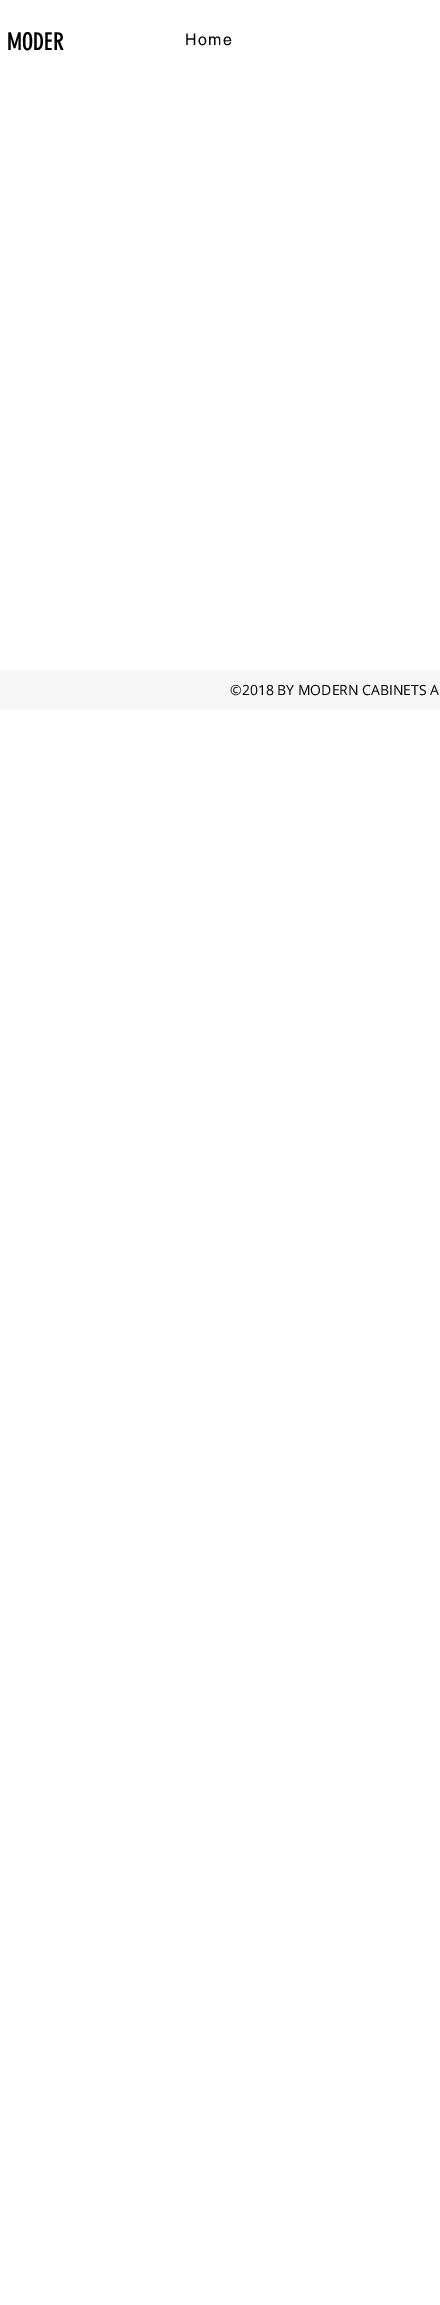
%!PS-Adobe-3.0
%%BoundingBox: 0 0 440 2305
%%LanguageLevel: 3
%%Pages: 1
%%EndComments
%%BeginProlog
/setink { 3 { 255 div 3 1 roll } repeat setrgbcolor } def
/usefont { [ exch dup neg 0 0 3 -1 roll 0 0 ] selectfont } def
/drawtext { setink usefont moveto show } def
/fillbox { setink rectfill } def
%%EndProlog
%%BeginSetup
<< /PageSize [440 2305] >> setpagedevice
%%EndSetup
%%Page: 1 1
0 2305 translate 1 -1 scale
4 setmiterlimit
0 0 440 2305 255 255 255 fillbox
(MODER) 7 50 /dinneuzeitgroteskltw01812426-Regular 24 0 0 0 drawtext
/helvetica-Regular 16 usefont
185 45 moveto 1.5 0 (Home) ashow
0 670 440 40 247 247 247 fillbox
(©2018 BY MODERN CABINETS A) 230 695 /OpenSans-Regular 14 0 0 0 drawtext
showpage
%%EOF
